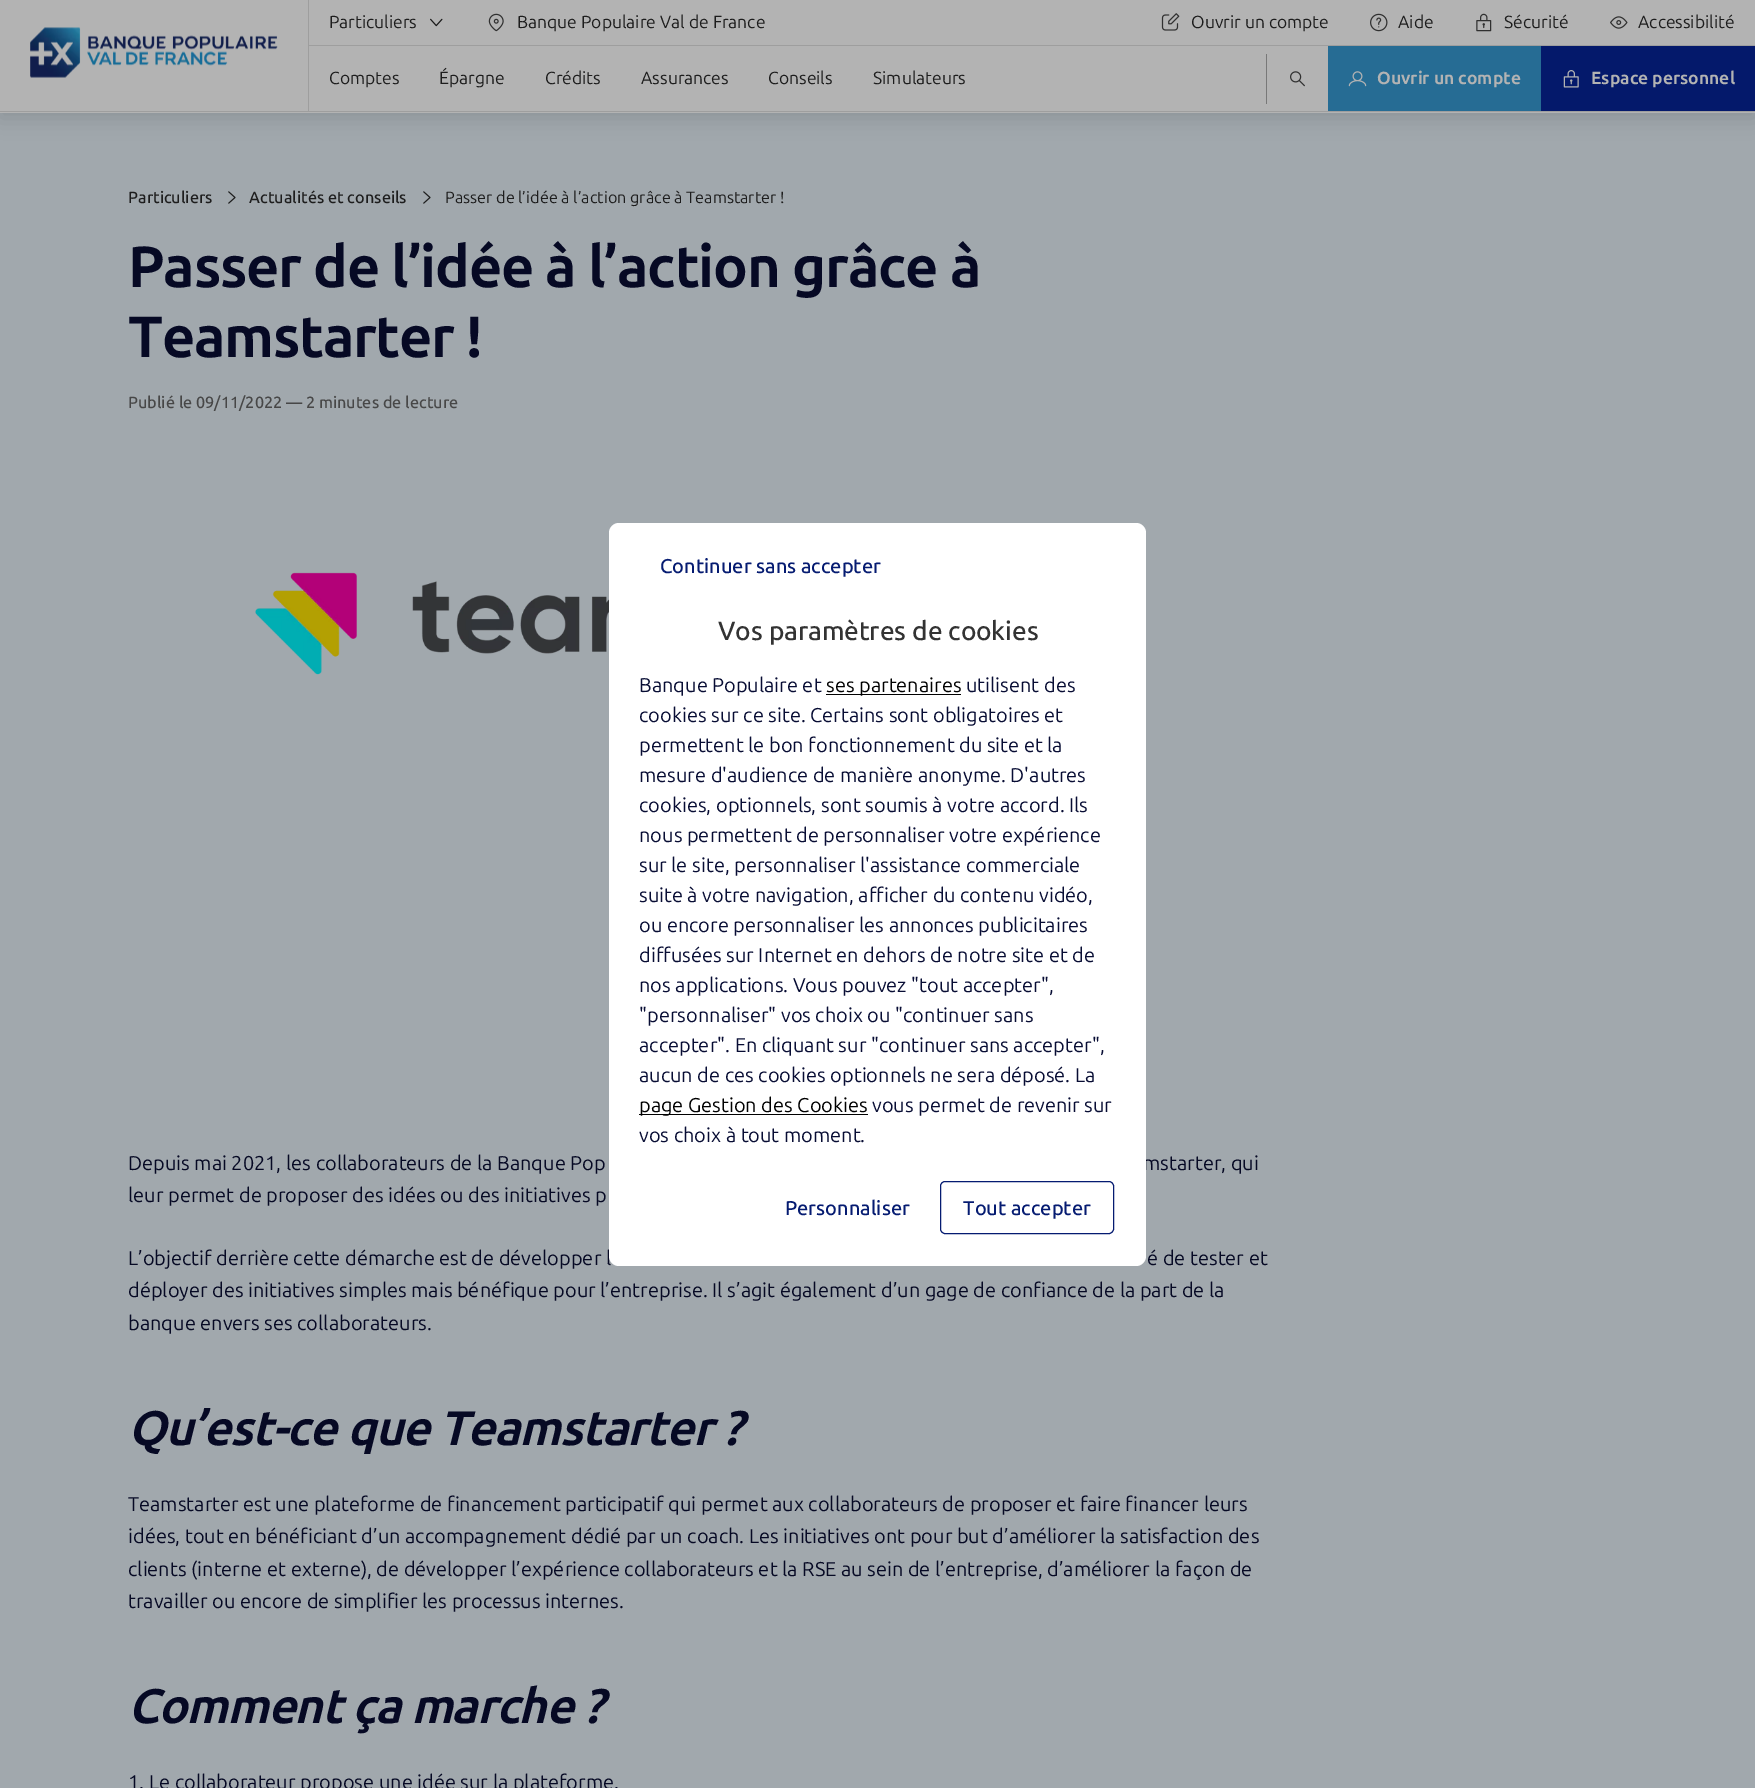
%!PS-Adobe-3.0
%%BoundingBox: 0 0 1755 1788
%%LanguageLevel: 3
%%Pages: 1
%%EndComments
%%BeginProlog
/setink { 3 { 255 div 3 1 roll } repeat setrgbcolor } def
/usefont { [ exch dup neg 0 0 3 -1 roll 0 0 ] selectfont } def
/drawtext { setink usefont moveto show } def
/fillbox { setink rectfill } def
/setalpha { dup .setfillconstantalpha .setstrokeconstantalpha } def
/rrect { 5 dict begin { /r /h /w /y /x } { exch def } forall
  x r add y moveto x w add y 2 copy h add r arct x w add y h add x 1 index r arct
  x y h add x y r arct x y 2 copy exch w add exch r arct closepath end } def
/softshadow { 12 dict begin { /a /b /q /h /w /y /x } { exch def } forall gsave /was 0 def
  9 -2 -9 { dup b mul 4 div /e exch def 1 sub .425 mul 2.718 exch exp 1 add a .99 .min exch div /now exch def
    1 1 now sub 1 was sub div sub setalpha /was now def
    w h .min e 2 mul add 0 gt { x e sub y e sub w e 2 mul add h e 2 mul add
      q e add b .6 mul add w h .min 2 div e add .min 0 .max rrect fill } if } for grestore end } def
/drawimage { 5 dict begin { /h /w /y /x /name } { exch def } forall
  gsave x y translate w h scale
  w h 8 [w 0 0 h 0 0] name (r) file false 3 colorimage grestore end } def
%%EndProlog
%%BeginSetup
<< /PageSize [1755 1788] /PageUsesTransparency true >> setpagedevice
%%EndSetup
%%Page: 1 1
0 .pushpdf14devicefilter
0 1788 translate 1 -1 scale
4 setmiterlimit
0 0 1755 1788 161 168 173 fillbox
0 0 0 setink
0 5 1755 113 0 10 0.12 softshadow
0 0 1755 113 179 179 179 fillbox
0 111 1755 1 158 158 158 fillbox
(assets/img1.rgb) 30 27 248 51 drawimage
308 0 1 111 158 158 158 fillbox
309 45 1446 1 158 158 158 fillbox
(Particuliers) 329 28 /Ubuntu-Regular 17.5 29 29 29 drawtext
(assets/img2.rgb) 430 18 13 9 drawimage
(assets/img3.rgb) 488 13 16 19 drawimage
(Banque Populaire Val de France) 517 28 /Ubuntu-Regular 17.5 29 29 29 drawtext
(assets/img4.rgb) 1161 13 19 18 drawimage
(Ouvrir un compte) 1191 28 /Ubuntu-Regular 17.5 29 29 29 drawtext
(assets/img5.rgb) 1370 13 18 19 drawimage
(Aide) 1398 28 /Ubuntu-Regular 17.5 29 29 29 drawtext
(assets/img6.rgb) 1476 13 16 19 drawimage
(Sécurité) 1504 28 /Ubuntu-Regular 17.5 29 29 29 drawtext
(assets/img7.rgb) 1610 16 18 13 drawimage
(Accessibilité) 1638 28 /Ubuntu-Regular 17.5 29 29 29 drawtext
(Comptes) 329 84 /Ubuntu-Regular 17.5 29 29 29 drawtext
(Épargne) 439 84 /Ubuntu-Regular 17.5 29 29 29 drawtext
(Crédits) 545 84 /Ubuntu-Regular 17.5 29 29 29 drawtext
(Assurances) 641 84 /Ubuntu-Regular 17.5 29 29 29 drawtext
(Conseils) 768 84 /Ubuntu-Regular 17.5 29 29 29 drawtext
(Simulateurs) 873 84 /Ubuntu-Regular 17.5 29 29 29 drawtext
1266 54 1 50 120 120 120 fillbox
(assets/img8.rgb) 1290 71 15 16 drawimage
1328 46 213 65 38 108 148 fillbox
(assets/img9.rgb) 1348 71 19 16 drawimage
(Ouvrir un compte) 1377 84 /Ubuntu-Bold 17.5 179 179 179 drawtext
1541 46 214 65 4 25 107 fillbox
(assets/img10.rgb) 1563 70 16 18 drawimage
(Espace personnel) 1591 84 /Ubuntu-Bold 17.5 179 179 179 drawtext
(Particuliers) 128 203 /Ubuntu-Medium 16.25 29 29 29 drawtext
(assets/img11.rgb) 228 191 8 13 drawimage
(Actualités et conseils) 249 203 /Ubuntu-Medium 16.25 29 29 29 drawtext
(assets/img11.rgb) 423 191 8 13 drawimage
(Passer de l’idée à l’action grâce à Teamstarter !) 445 203 /Ubuntu-Regular 16.25 29 29 29 drawtext
/Ubuntu-Bold 58.1 usefont
6 9 36 setink
128 287 moveto -1.3 0 (Passer de l’idée à l’action grâce à) ashow
128 357 moveto -1.3 0 (Teamstarter !) ashow
(Publié le 09/11/2022 — 2 minutes de lecture) 128 408 /Ubuntu-Medium 16.25 71 71 71 drawtext
(assets/img12.rgb) 255 572 354 103 drawimage
(Depuis mai 2021, les collaborateurs de la Banque Pop) 128 1170 /Ubuntu-Regular 20 6 9 36 drawtext
(mstarter, qui) 1143 1170 /Ubuntu-Regular 20 6 9 36 drawtext
(leur permet de proposer des idées ou des initiatives p) 128 1202 /Ubuntu-Regular 20 6 9 36 drawtext
(L’objectif derrière cette démarche est de développer l) 128 1265 /Ubuntu-Regular 20 6 9 36 drawtext
(é de tester et) 1147 1265 /Ubuntu-Regular 20 6 9 36 drawtext
(déployer des initiatives simples mais bénéfique pour l’entreprise. Il s’agit également d’un gage de confiance de la part de la) 128 1297 /Ubuntu-Regular 20 6 9 36 drawtext
(banque envers ses collaborateurs.) 128 1330 /Ubuntu-Regular 20 6 9 36 drawtext
/Ubuntu-BoldItalic 48.5 usefont
128 1445 moveto -1.05 0 (Qu’est-ce que Teamstarter ?) ashow
(Teamstarter est une plateforme de financement participatif qui permet aux collaborateurs de proposer et faire financer leurs) 128 1511 /Ubuntu-Regular 20 6 9 36 drawtext
(idées, tout en bénéficiant d’un accompagnement dédié par un coach. Les initiatives ont pour but d’améliorer la satisfaction des) 128 1543 /Ubuntu-Regular 20 6 9 36 drawtext
(clients \(interne et externe\), de développer l’expérience collaborateurs et la RSE au sein de l’entreprise, d’améliorer la façon de) 128 1576 /Ubuntu-Regular 20 6 9 36 drawtext
(travailler ou encore de simplifier les processus internes.) 128 1608 /Ubuntu-Regular 20 6 9 36 drawtext
/Ubuntu-BoldItalic 48.5 usefont
128 1723 moveto -1.05 0 (Comment ça marche ?) ashow
(1. Le collaborateur propose une idée sur la plateforme.) 128 1789 /Ubuntu-Regular 20 6 9 36 drawtext
255 255 255 setink
619 523 moveto 1136 523 lineto 1141.5 523 1146 527.5 1146 533 curveto 1146 650 lineto 609 650 lineto 609 533 lineto 609 527.5 613.5 523 619 523 curveto closepath fill
(Continuer sans accepter) 660 573 /Ubuntu-Medium 20 5 27 113 drawtext
/Ubuntu-Medium 26.25 usefont
51 51 51 setink
718 640 moveto -0.1 0 (Vos paramètres de cookies) ashow
609 650 537 519 255 255 255 fillbox
(Banque Populaire et) 639 692 /Ubuntu-Regular 20 8 13 52 drawtext
826 694 135 1 0 0 0 fillbox
(ses partenaires) 826 692 /Ubuntu-Regular 20 0 0 0 drawtext
(utilisent des) 966 692 /Ubuntu-Regular 20 8 13 52 drawtext
(cookies sur ce site. Certains sont obligatoires et) 639 722 /Ubuntu-Regular 20 8 13 52 drawtext
(permettent le bon fonctionnement du site et la) 639 752 /Ubuntu-Regular 20 8 13 52 drawtext
(mesure d'audience de manière anonyme. D'autres) 639 782 /Ubuntu-Regular 20 8 13 52 drawtext
(cookies, optionnels, sont soumis à votre accord. Ils) 639 812 /Ubuntu-Regular 20 8 13 52 drawtext
(nous permettent de personnaliser votre expérience) 639 842 /Ubuntu-Regular 20 8 13 52 drawtext
(sur le site, personnaliser l'assistance commerciale) 639 872 /Ubuntu-Regular 20 8 13 52 drawtext
(suite à votre navigation, afficher du contenu vidéo,) 639 902 /Ubuntu-Regular 20 8 13 52 drawtext
(ou encore personnaliser les annonces publicitaires) 639 932 /Ubuntu-Regular 20 8 13 52 drawtext
(diffusées sur Internet en dehors de notre site et de) 639 962 /Ubuntu-Regular 20 8 13 52 drawtext
(nos applications. Vous pouvez "tout accepter",) 639 992 /Ubuntu-Regular 20 8 13 52 drawtext
("personnaliser" vos choix ou "continuer sans) 639 1022 /Ubuntu-Regular 20 8 13 52 drawtext
(accepter". En cliquant sur "continuer sans accepter",) 639 1052 /Ubuntu-Regular 20 8 13 52 drawtext
(aucun de ces cookies optionnels ne sera déposé. La) 639 1082 /Ubuntu-Regular 20 8 13 52 drawtext
639 1114 229 1 0 0 0 fillbox
(page Gestion des Cookies) 639 1112 /Ubuntu-Regular 20 0 0 0 drawtext
(vous permet de revenir sur) 872 1112 /Ubuntu-Regular 20 8 13 52 drawtext
(vos choix à tout moment.) 639 1142 /Ubuntu-Regular 20 8 13 52 drawtext
255 255 255 setink
609 1169 moveto 1146 1169 lineto 1146 1256 lineto 1146 1261.5 1141.5 1266 1136 1266 curveto 619 1266 lineto 613.5 1266 609 1261.5 609 1256 curveto closepath fill
(Personnaliser) 785 1215 /Ubuntu-Medium 20 5 27 113 drawtext
940.5 1181.5 173 52 4.5 rrect stroke
(Tout accepter) 963 1215 /Ubuntu-Medium 20 5 27 113 drawtext
.poppdf14devicefilter showpage
%%EOF
